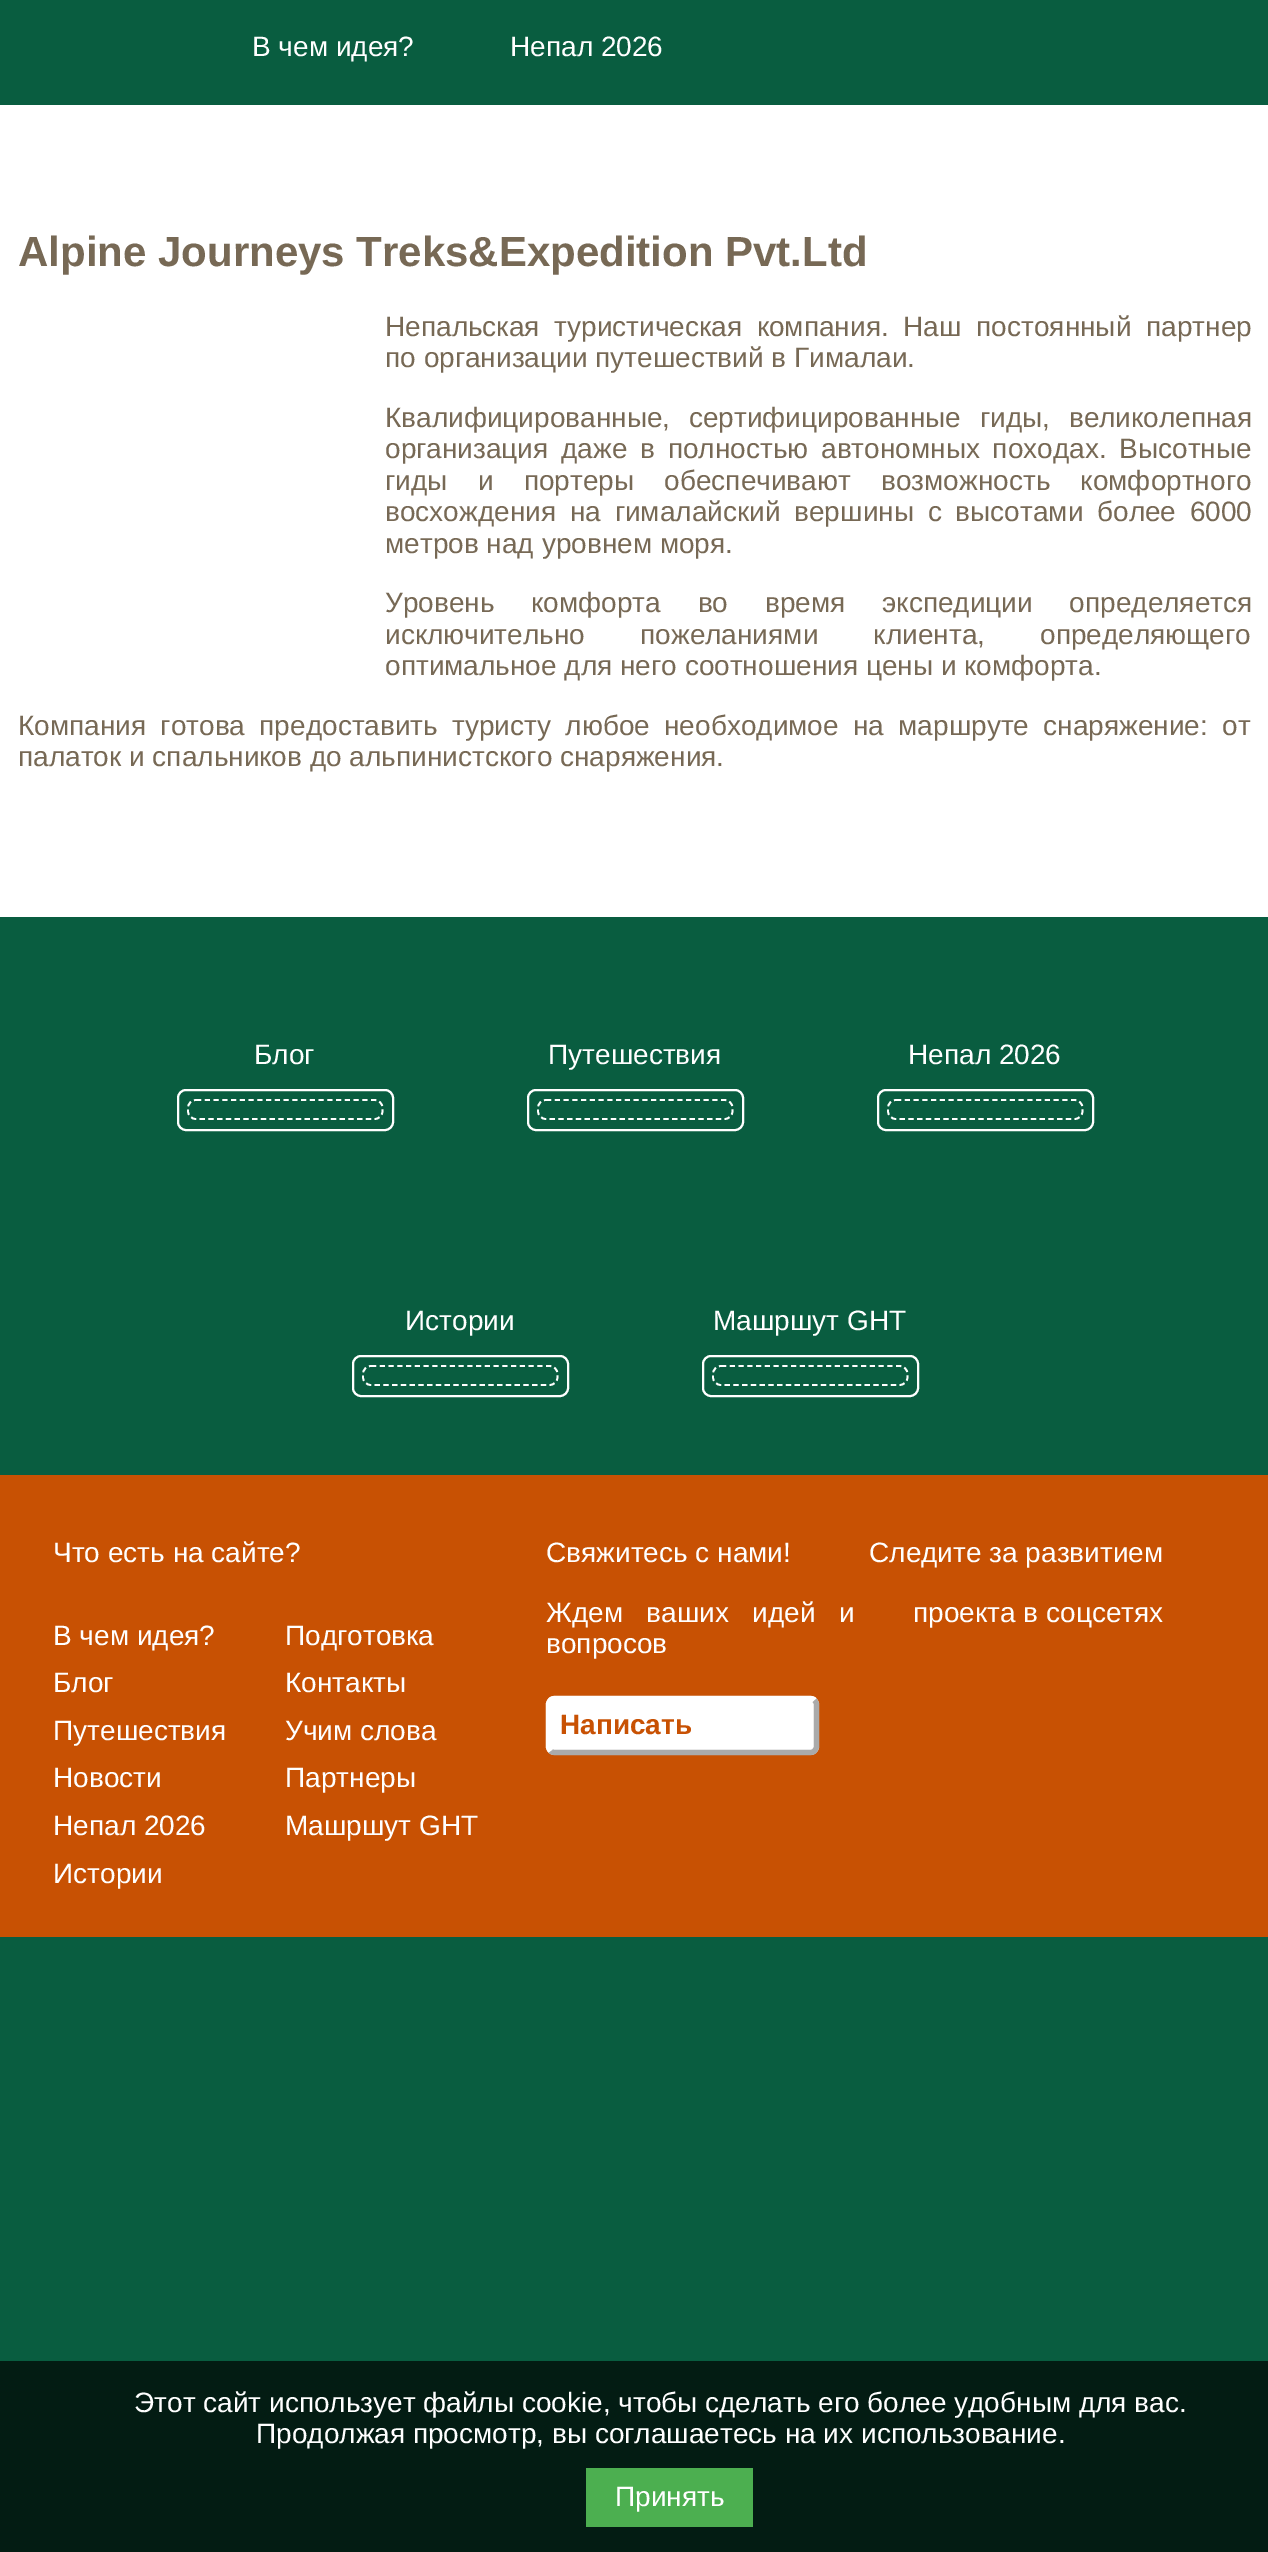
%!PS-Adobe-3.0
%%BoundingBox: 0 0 1268 2552
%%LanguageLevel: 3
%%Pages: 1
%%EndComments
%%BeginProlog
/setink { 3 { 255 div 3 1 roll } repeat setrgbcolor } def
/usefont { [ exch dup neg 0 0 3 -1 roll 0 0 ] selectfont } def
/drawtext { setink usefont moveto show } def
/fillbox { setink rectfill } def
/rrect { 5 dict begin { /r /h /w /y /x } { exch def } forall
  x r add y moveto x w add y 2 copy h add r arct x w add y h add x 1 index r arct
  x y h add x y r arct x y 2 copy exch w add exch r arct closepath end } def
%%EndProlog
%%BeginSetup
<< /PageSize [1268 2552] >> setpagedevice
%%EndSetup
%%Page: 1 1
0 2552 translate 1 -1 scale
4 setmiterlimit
0 0 1268 2552 9 93 64 fillbox
(В чем идея?) 252 56 /LiberationSans-Regular 28 255 255 255 drawtext
(Непал 2026) 510 56 /LiberationSans-Regular 28 255 255 255 drawtext
0 105 1268 812 255 255 255 fillbox
(Alpine Journeys Treks&Expedition Pvt.Ltd) 18 266 /LiberationSans-Bold 42 119 105 85 drawtext
/LiberationSans-Regular 28 usefont
385 336 moveto 7 0 32 (Непальская туристическая компания. Наш постоянный партнер) widthshow
(по организации путешествий в Гималаи.) 385 367 /LiberationSans-Regular 28 119 105 85 drawtext
385 427 moveto 11 0 32 (Квалифицированные, сертифицированные гиды, великолепная) widthshow
385 458 moveto 5 0 32 (организация даже в полностью автономных походах. Высотные) widthshow
385 490 moveto 22.5 0 32 (гиды и портеры обеспечивают возможность комфортного) widthshow
385 521 moveto 6 0 32 (восхождения на гималайский вершины с высотами более 6000) widthshow
(метров над уровнем моря.) 385 553 /LiberationSans-Regular 28 119 105 85 drawtext
385 612 moveto 29 0 32 (Уровень комфорта во время экспедиции определяется) widthshow
385 644 moveto 47.5 0 32 (исключительно пожеланиями клиента, определяющего) widthshow
(оптимальное для него соотношения цены и комфорта.) 385 675 /LiberationSans-Regular 28 119 105 85 drawtext
18 735 moveto 6.5 0 32 (Компания готова предоставить туристу любое необходимое на маршруте снаряжение: от) widthshow
(палаток и спальников до альпинистского снаряжения.) 18 766 /LiberationSans-Regular 28 119 105 85 drawtext
(Блог) 254 1064 /LiberationSans-Regular 28 255 255 255 drawtext
2 setlinewidth
178 1090 215 40 8 rrect stroke
1.8 setlinewidth
[5.25 3.5] 0 setdash
196 1100 moveto 374.5 1100 lineto 379 1100 382.5 1103.5 382.5 1108 curveto 382.5 1111 lineto 382.5 1115.5 379 1119 374.5 1119 curveto 196 1119 lineto 191.5 1119 188 1115.5 188 1111 curveto 188 1108 lineto 188 1103.5 191.5 1100 196 1100 curveto closepath stroke
(Путешествия) 548 1064 /LiberationSans-Regular 28 255 255 255 drawtext
2 setlinewidth
[] 0 setdash
528 1090 215 40 8 rrect stroke
1.8 setlinewidth
[5.25 3.5] 0 setdash
546 1100 moveto 724.5 1100 lineto 729 1100 732.5 1103.5 732.5 1108 curveto 732.5 1111 lineto 732.5 1115.5 729 1119 724.5 1119 curveto 546 1119 lineto 541.5 1119 538 1115.5 538 1111 curveto 538 1108 lineto 538 1103.5 541.5 1100 546 1100 curveto closepath stroke
(Непал 2026) 908 1064 /LiberationSans-Regular 28 255 255 255 drawtext
2 setlinewidth
[] 0 setdash
878 1090 215 40 8 rrect stroke
1.8 setlinewidth
[5.25 3.5] 0 setdash
896 1100 moveto 1074.5 1100 lineto 1079 1100 1082.5 1103.5 1082.5 1108 curveto 1082.5 1111 lineto 1082.5 1115.5 1079 1119 1074.5 1119 curveto 896 1119 lineto 891.5 1119 888 1115.5 888 1111 curveto 888 1108 lineto 888 1103.5 891.5 1100 896 1100 curveto closepath stroke
(Истории) 405 1330 /LiberationSans-Regular 28 255 255 255 drawtext
2 setlinewidth
[] 0 setdash
353 1356 215 40 8 rrect stroke
1.8 setlinewidth
[5.25 3.5] 0 setdash
371 1366 moveto 549.5 1366 lineto 554 1366 557.5 1369.5 557.5 1374 curveto 557.5 1377 lineto 557.5 1381.5 554 1385 549.5 1385 curveto 371 1385 lineto 366.5 1385 363 1381.5 363 1377 curveto 363 1374 lineto 363 1369.5 366.5 1366 371 1366 curveto closepath stroke
(Машршут GHT) 713 1330 /LiberationSans-Regular 28 255 255 255 drawtext
2 setlinewidth
[] 0 setdash
703 1356 215 40 8 rrect stroke
1.8 setlinewidth
[5.25 3.5] 0 setdash
721 1366 moveto 899.5 1366 lineto 904 1366 907.5 1369.5 907.5 1374 curveto 907.5 1377 lineto 907.5 1381.5 904 1385 899.5 1385 curveto 721 1385 lineto 716.5 1385 713 1381.5 713 1377 curveto 713 1374 lineto 713 1369.5 716.5 1366 721 1366 curveto closepath stroke
0 1475 1268 462 200 81 3 fillbox
(Что есть на сайте?) 53 1562 /LiberationSans-Regular 28 255 255 255 drawtext
(В чем идея?) 53 1645 /LiberationSans-Regular 28 255 255 255 drawtext
(Блог) 53 1692 /LiberationSans-Regular 28 255 255 255 drawtext
(Путешествия) 53 1740 /LiberationSans-Regular 28 255 255 255 drawtext
(Новости) 53 1787 /LiberationSans-Regular 28 255 255 255 drawtext
(Непал 2026) 53 1835 /LiberationSans-Regular 28 255 255 255 drawtext
(Истории) 53 1883 /LiberationSans-Regular 28 255 255 255 drawtext
(Подготовка) 285 1645 /LiberationSans-Regular 28 255 255 255 drawtext
(Контакты) 285 1692 /LiberationSans-Regular 28 255 255 255 drawtext
(Учим слова) 285 1740 /LiberationSans-Regular 28 255 255 255 drawtext
(Партнеры) 285 1787 /LiberationSans-Regular 28 255 255 255 drawtext
(Машршут GHT) 285 1835 /LiberationSans-Regular 28 255 255 255 drawtext
(Свяжитесь с нами!) 546 1562 /LiberationSans-Regular 28 255 255 255 drawtext
546 1622 moveto 15.5 0 32 (Ждем ваших идей и) widthshow
(вопросов) 546 1653 /LiberationSans-Regular 28 255 255 255 drawtext
546 1696 273 59 9 rrect fill
170 170 170 setink
5.2 setlinewidth
[] 0 setdash
814.5 1700 moveto 815.5 1701.5 816.5 1703 816.5 1704.5 curveto 816.5 1746.5 lineto 816.5 1748 815.5 1749.5 814.5 1751 curveto 813.5 1752 812 1752.5 810 1752.5 curveto 555 1752.5 lineto 553 1752.5 551.5 1752 550.5 1751 curveto stroke
255 255 255 setink
550.5 1751 moveto 549.5 1749.5 548.5 1748 548.5 1746.5 curveto 548.5 1704.5 lineto 548.5 1703 549.5 1701.5 550.5 1700 curveto 551.5 1699 553 1698.5 555 1698.5 curveto 810 1698.5 lineto 812 1698.5 813.5 1699 814.5 1700 curveto stroke
(Написать) 560 1734 /LiberationSans-Bold 28 200 81 3 drawtext
(Следите за развитием) 869 1562 /LiberationSans-Regular 28 255 255 255 drawtext
(проекта в соцсетях) 913 1622 /LiberationSans-Regular 28 255 255 255 drawtext
0 2361 1268 191 3 28 19 fillbox
(Этот сайт использует файлы cookie, чтобы сделать его более удобным для вас.) 134 2412 /LiberationSans-Regular 28 255 255 255 drawtext
(Продолжая просмотр, вы соглашаетесь на их использование.) 256 2443 /LiberationSans-Regular 28 255 255 255 drawtext
586 2468 167 59 76 175 80 fillbox
(Принять) 615 2506 /LiberationSans-Regular 28 255 255 255 drawtext
showpage
%%EOF
